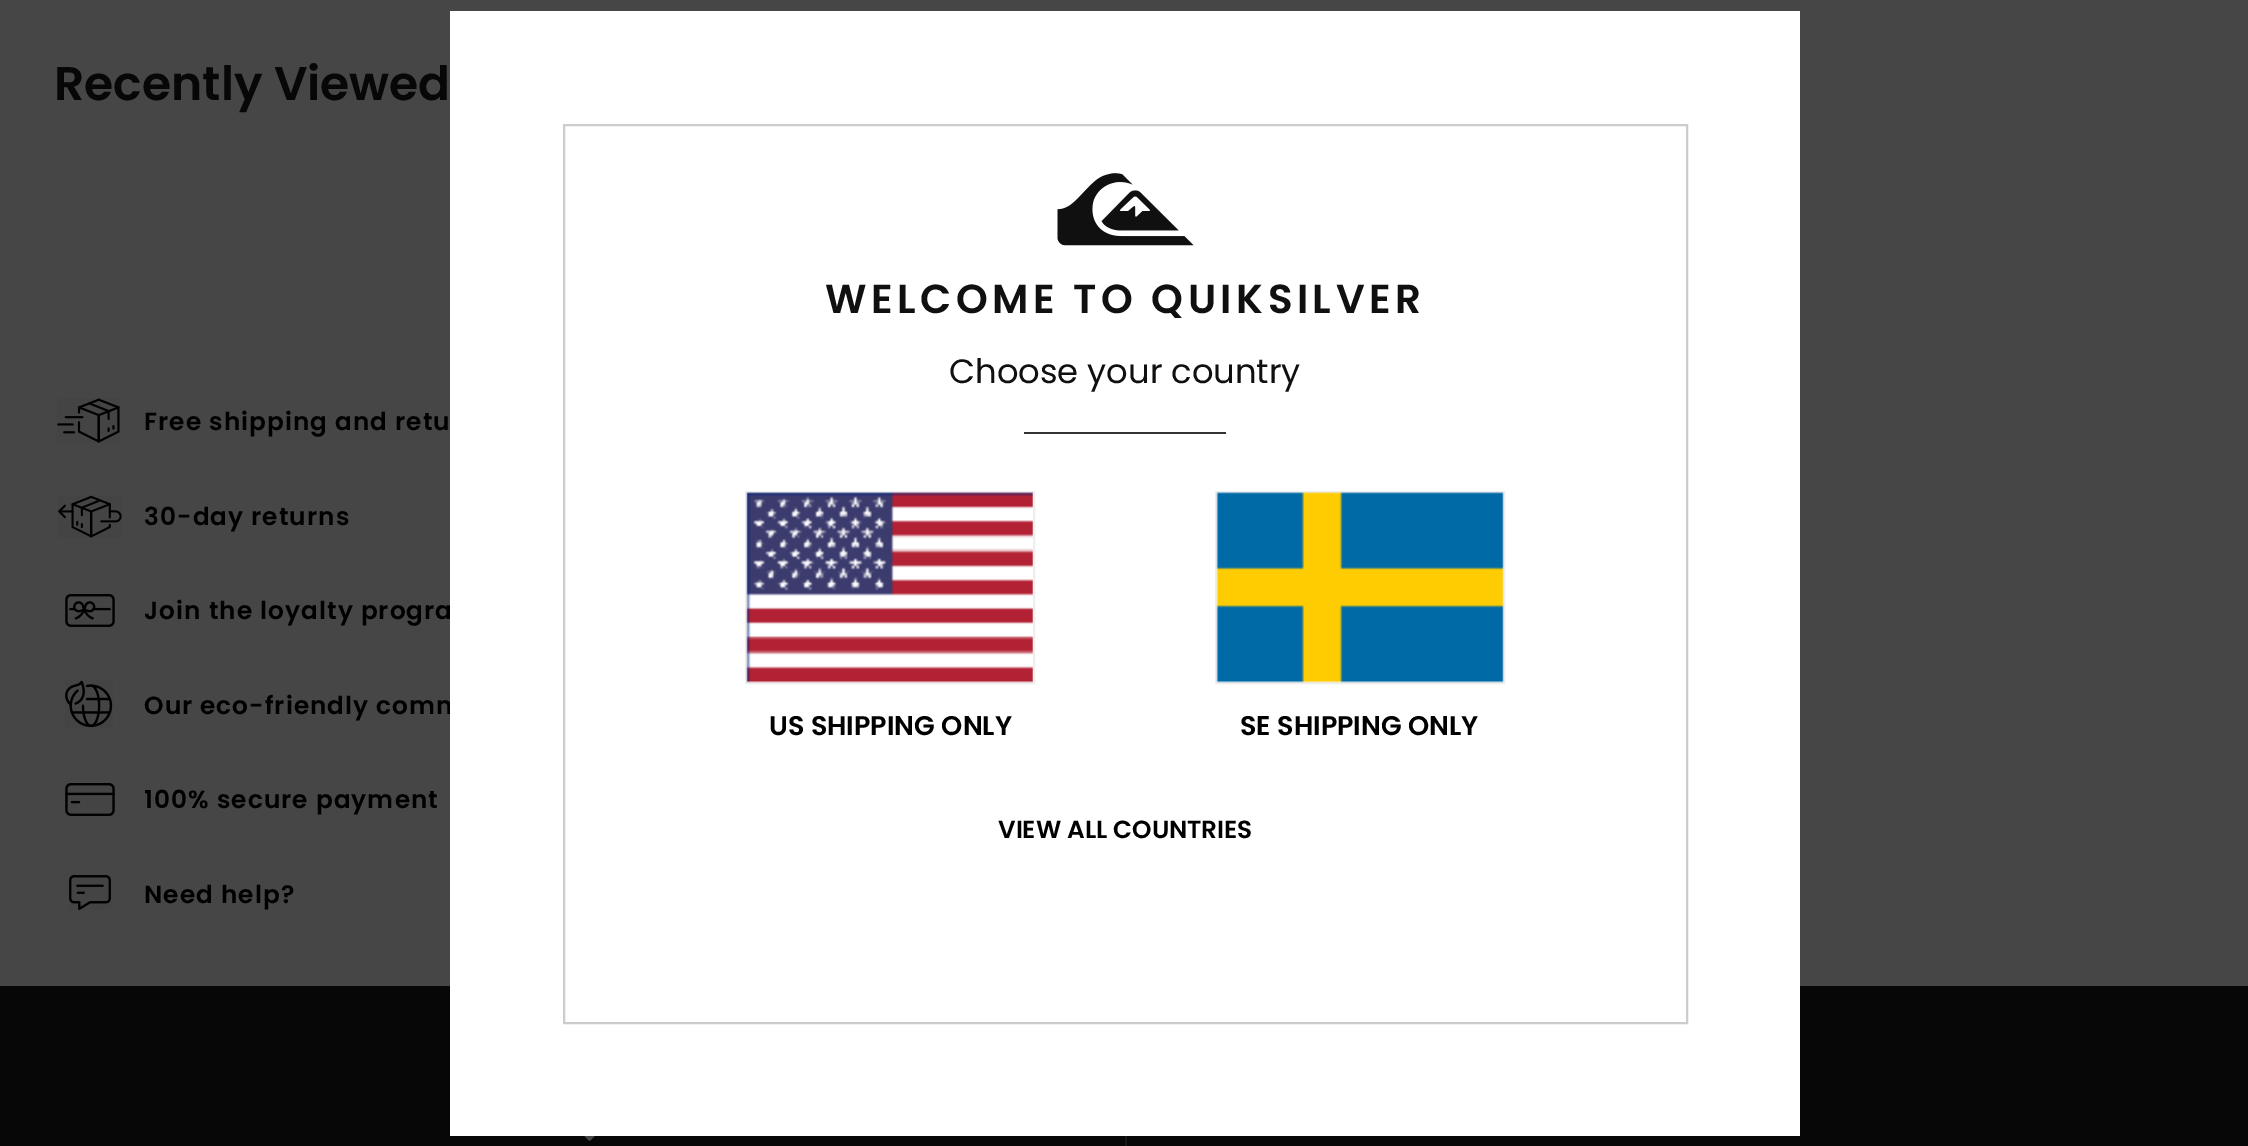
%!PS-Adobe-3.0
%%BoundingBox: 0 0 2248 1146
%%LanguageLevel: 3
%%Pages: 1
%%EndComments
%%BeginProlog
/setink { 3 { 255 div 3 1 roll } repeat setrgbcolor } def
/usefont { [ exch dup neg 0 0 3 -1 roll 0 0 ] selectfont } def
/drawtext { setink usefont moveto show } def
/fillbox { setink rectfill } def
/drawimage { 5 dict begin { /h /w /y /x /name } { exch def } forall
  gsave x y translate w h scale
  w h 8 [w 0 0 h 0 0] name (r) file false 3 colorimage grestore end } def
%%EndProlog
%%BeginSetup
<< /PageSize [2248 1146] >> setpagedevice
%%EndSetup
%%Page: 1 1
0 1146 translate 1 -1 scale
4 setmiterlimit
0 0 2248 1146 70 70 70 fillbox
(Recently Viewed) 54 100 /Poppins-SemiBold 47.25 7 7 7 drawtext
(assets/img1.rgb) 57 398 63 45 drawimage
/Poppins-SemiBold 24.75 usefont
0 0 0 setink
144 430 moveto 1.1 0 (Free shipping and retu) ashow
(assets/img2.rgb) 58 495 64 43 drawimage
144 525 moveto 1.1 0 (30-day returns) ashow
(assets/img3.rgb) 65 594 50 33 drawimage
144 619 moveto 1.1 0 (Join the loyalty progra) ashow
(assets/img4.rgb) 65 680 48 48 drawimage
144 714 moveto 1.1 0 (Our eco-friendly comm) ashow
(assets/img5.rgb) 65 783 50 33 drawimage
144 808 moveto 1.1 0 (100% secure payment) ashow
(assets/img6.rgb) 69 875 42 35 drawimage
144 903 moveto 1.1 0 (Need help?) ashow
0 986 2248 160 7 7 7 fillbox
(assets/img7.rgb) 584 1136 11 5 drawimage
1125 1136 2 10 22 22 22 fillbox
450 11 1350 1125 255 255 255 fillbox
204 204 204 setink
2 setlinewidth
564 125 1123 898 rectstroke
(assets/img8.rgb) 1057 173 137 73 drawimage
/Poppins-SemiBold 40.5 usefont
16 16 16 setink
825 313 moveto 4.5 0 (WELCOME TO QUIKSILVER) ashow
(Choose your country) 949 383 /Poppins-Regular 33.75 16 16 16 drawtext
1024 432 202 2 51 51 51 fillbox
238 238 238 setink
746 492 288 191 rectstroke
(assets/img9.rgb) 746 492 287 191 drawimage
(US SHIPPING ONLY) 769 735 /Poppins-SemiBold 27 0 0 0 drawtext
238 238 238 setink
1216 492 288 191 rectstroke
(assets/img10.rgb) 1216 492 288 191 drawimage
(SE SHIPPING ONLY) 1240 735 /Poppins-SemiBold 27 0 0 0 drawtext
(VIEW ALL COUNTRIES) 998 838 /Poppins-SemiBold 24.75 0 0 0 drawtext
showpage
%%EOF
